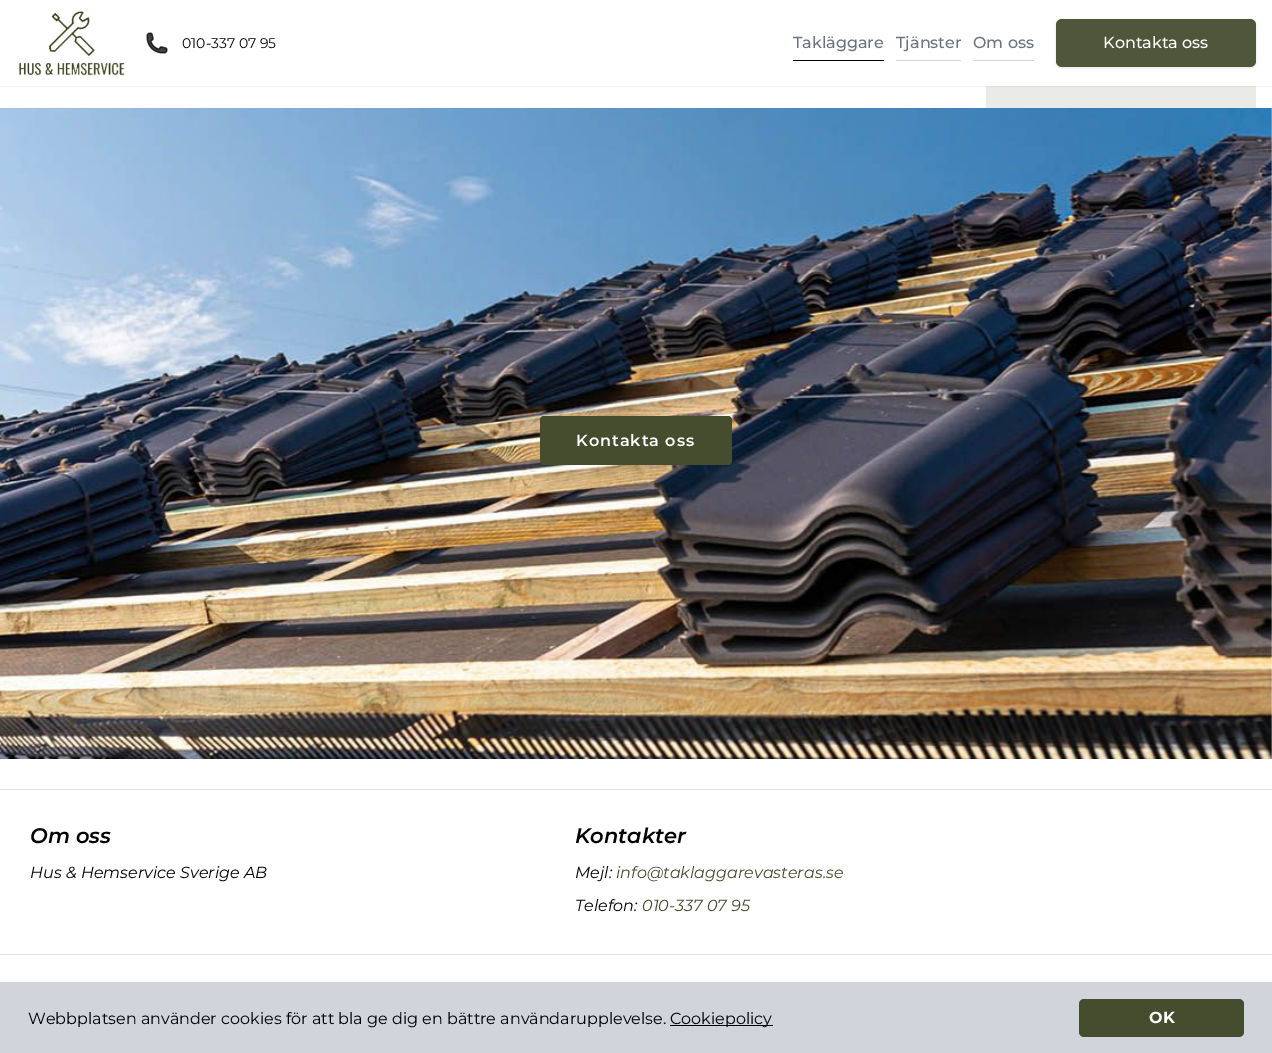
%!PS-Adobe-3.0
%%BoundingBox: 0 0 1272 1053
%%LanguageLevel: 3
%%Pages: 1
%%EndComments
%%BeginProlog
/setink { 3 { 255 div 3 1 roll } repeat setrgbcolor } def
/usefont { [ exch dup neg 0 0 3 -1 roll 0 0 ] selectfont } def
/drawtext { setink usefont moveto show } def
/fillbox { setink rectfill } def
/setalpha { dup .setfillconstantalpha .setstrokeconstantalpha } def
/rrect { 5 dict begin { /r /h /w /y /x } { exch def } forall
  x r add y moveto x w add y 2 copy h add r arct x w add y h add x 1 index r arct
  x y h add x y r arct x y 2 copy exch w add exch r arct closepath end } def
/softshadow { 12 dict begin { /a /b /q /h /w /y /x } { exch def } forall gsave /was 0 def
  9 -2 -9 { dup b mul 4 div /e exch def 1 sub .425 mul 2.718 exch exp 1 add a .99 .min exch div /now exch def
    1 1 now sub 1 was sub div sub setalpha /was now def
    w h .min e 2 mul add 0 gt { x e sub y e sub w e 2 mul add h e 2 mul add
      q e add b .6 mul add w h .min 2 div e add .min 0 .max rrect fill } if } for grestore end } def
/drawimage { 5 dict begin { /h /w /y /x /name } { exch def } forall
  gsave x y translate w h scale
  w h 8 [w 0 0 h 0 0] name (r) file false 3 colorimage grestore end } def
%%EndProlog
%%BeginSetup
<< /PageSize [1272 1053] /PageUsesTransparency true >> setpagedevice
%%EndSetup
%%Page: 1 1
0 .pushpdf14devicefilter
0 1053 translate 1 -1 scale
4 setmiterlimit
0 0 1272 1053 255 255 255 fillbox
986 86 270 22 234 235 231 fillbox
0 0 0 setink
0 1 1272 86 0 1 0.05 softshadow
0 0 1272 86 255 255 255 fillbox
(assets/img1.rgb) 19 11 106 65 drawimage
(assets/img2.rgb) 146 32 22 22 drawimage
(010-337 07 95) 182 48 /Montserrat-Regular 14 0 0 0 drawtext
(Takläggare) 793 48 /Montserrat-Medium 16 107 114 128 drawtext
793 60 91 1 0 0 0 fillbox
(Tjänster) 896 48 /Montserrat-Medium 16 107 114 128 drawtext
896 60 65 1 209 213 219 fillbox
(Om oss) 973 48 /Montserrat-Medium 16 107 114 128 drawtext
973 60 61 1 209 213 219 fillbox
gsave
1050 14 moveto 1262 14 lineto 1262 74 lineto 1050 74 lineto closepath 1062 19 moveto 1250 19 lineto 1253.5 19 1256 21.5 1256 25 curveto 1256 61 lineto 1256 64.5 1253.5 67 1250 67 curveto 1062 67 lineto 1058.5 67 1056 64.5 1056 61 curveto 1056 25 lineto 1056 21.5 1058.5 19 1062 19 curveto closepath eoclip newpath
0 0 0 setink
1056 20 200 48 6 1.5 0.1 softshadow
grestore
0.95 setalpha
70 77 46 setink
1056 19 200 48 6 rrect fill
1 setalpha
(Kontakta oss) 1103 48 /Montserrat-Medium 16 255 255 255 drawtext
(assets/img3.rgb) 0 108 1272 651 drawimage
70 77 46 setink
540 416 192 49 4 rrect fill
/Montserrat-SemiBold 16 usefont
255 255 255 setink
576 446 moveto 1 0 (Kontakta oss) ashow
0 789 1272 1 221 221 221 fillbox
0 954 1272 1 221 221 221 fillbox
(Om oss) 30 843 /Montserrat-SemiBoldItalic 21 0 0 0 drawtext
(Hus & Hemservice Sverige AB) 30 878 /Montserrat-Italic 16 0 0 0 drawtext
(Kontakter) 575 843 /Montserrat-SemiBoldItalic 21 0 0 0 drawtext
(Mejl:) 575 878 /Montserrat-Italic 16 0 0 0 drawtext
(info@taklaggarevasteras.se) 616 878 /Montserrat-Italic 16 70 77 46 drawtext
(Telefon:) 575 911 /Montserrat-Italic 16 0 0 0 drawtext
(010-337 07 95) 642 911 /Montserrat-Italic 16 70 77 46 drawtext
0 982 1272 71 209 213 219 fillbox
(Webbplatsen använder cookies för att bla ge dig en bättre användarupplevelse.) 28 1024 /Montserrat-Regular 16 0 0 0 drawtext
670 1025 103 1 0 0 0 fillbox
(Cookiepolicy) 670 1024 /Montserrat-Regular 16 0 0 0 drawtext
70 77 46 setink
1079 999 165 38 5 rrect fill
(OK) 1149 1023 /Montserrat-Bold 16 255 255 255 drawtext
.poppdf14devicefilter showpage
%%EOF
